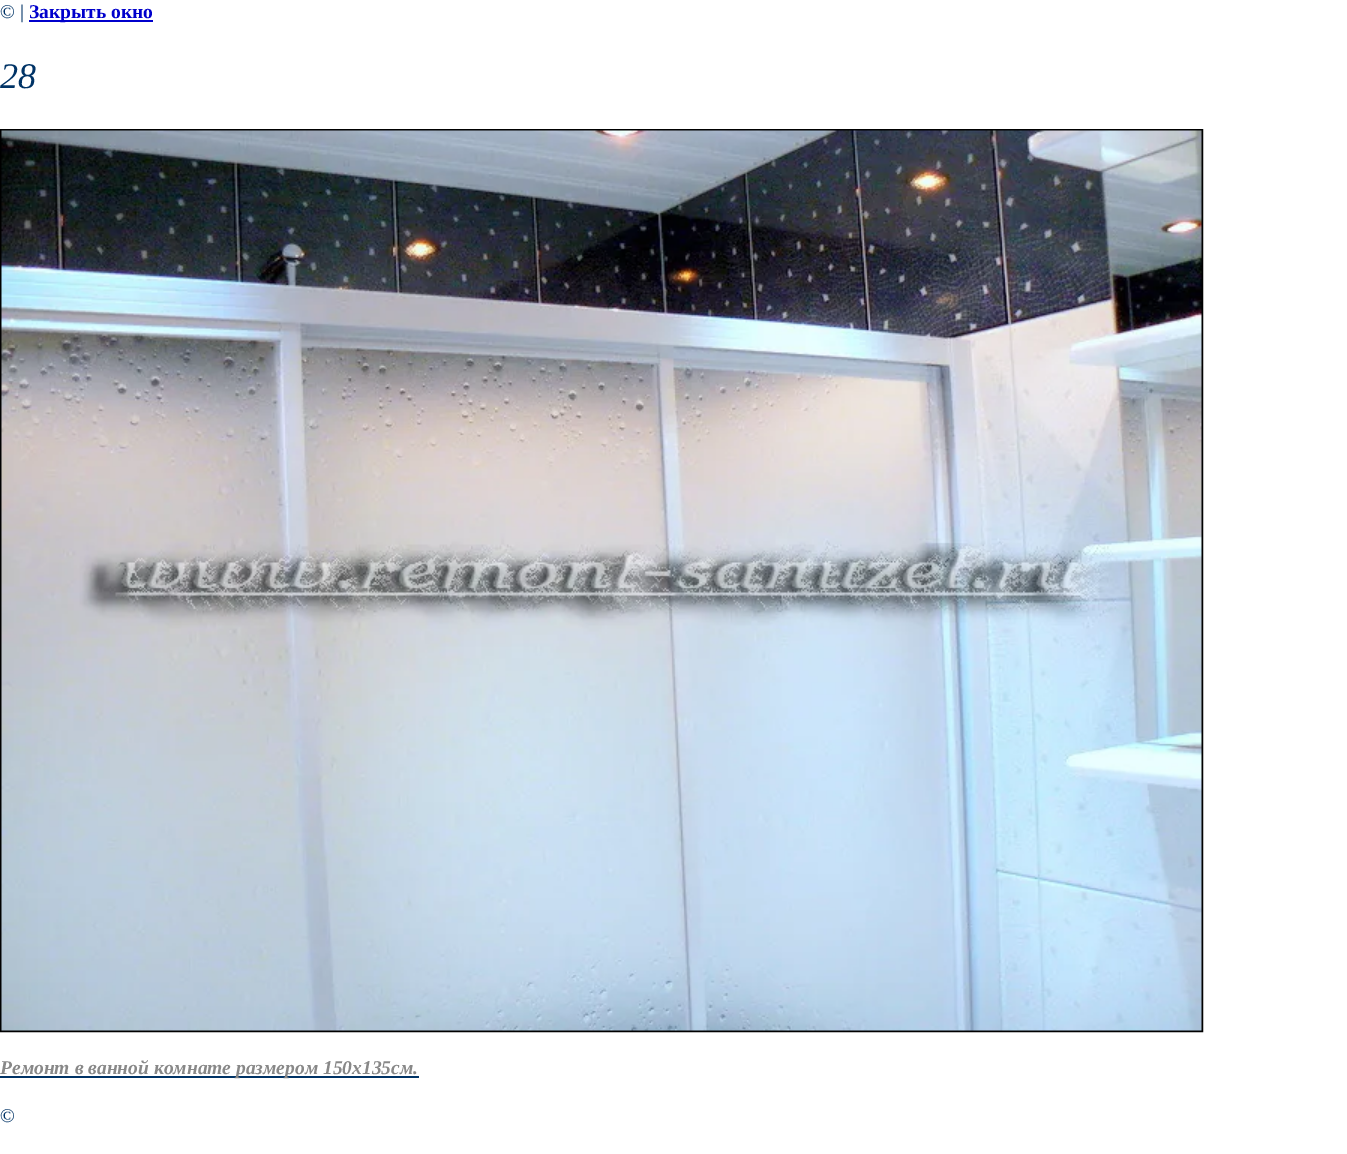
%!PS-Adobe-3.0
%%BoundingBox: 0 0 1347 1154
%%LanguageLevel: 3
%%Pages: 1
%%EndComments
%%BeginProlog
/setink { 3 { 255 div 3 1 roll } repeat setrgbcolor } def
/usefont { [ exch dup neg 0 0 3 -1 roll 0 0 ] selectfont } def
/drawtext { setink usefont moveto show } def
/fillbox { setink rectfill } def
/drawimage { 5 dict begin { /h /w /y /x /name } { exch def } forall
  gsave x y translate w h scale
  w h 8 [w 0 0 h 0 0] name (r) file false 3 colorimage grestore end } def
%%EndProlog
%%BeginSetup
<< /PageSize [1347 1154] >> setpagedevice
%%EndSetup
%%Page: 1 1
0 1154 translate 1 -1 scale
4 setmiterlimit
0 0 1347 1154 255 255 255 fillbox
(© |) 0 18 /LiberationSerif-Regular 19.5 0 51 102 drawtext
29 20 124 2 0 0 204 fillbox
(Закрыть окно) 29 18 /LiberationSerif-Bold 19.5 0 0 204 drawtext
(28) 0 88 /LiberationSerif-Italic 36 0 51 102 drawtext
0 0 0 setink
2 setlinewidth
1 130 1201 901 rectstroke
(assets/img1.rgb) 1 130 1201 901 drawimage
0 1076 419 2 0 51 102 fillbox
(Ремонт в ванной комнате размером 150х135см.) 0 1074 /LiberationSerif-BoldItalic 19.5 136 136 136 drawtext
(©) 0 1122 /LiberationSerif-Regular 19.5 0 51 102 drawtext
showpage
%%EOF
